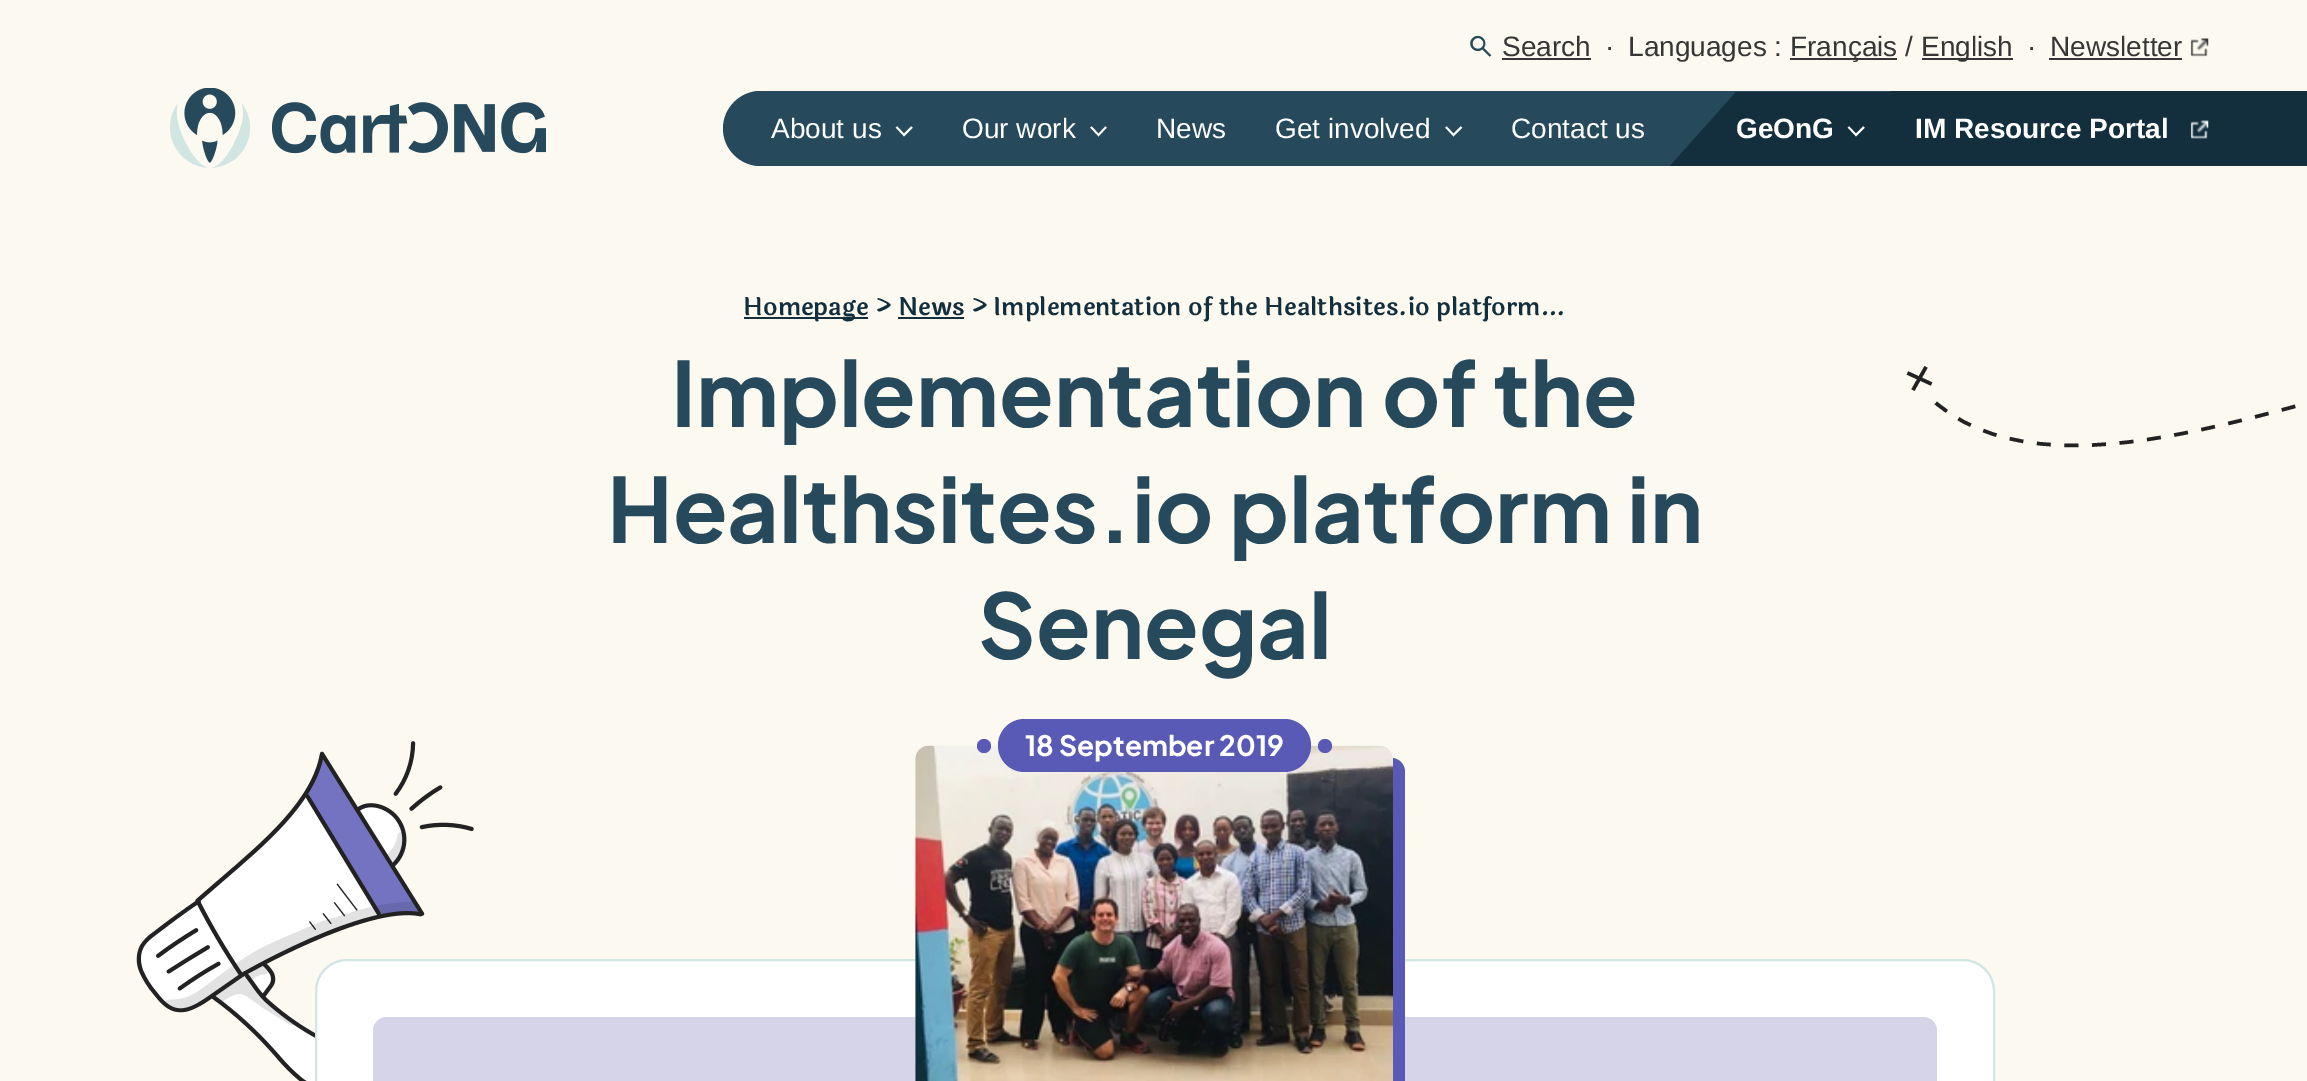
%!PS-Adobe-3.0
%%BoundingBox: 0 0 2307 1081
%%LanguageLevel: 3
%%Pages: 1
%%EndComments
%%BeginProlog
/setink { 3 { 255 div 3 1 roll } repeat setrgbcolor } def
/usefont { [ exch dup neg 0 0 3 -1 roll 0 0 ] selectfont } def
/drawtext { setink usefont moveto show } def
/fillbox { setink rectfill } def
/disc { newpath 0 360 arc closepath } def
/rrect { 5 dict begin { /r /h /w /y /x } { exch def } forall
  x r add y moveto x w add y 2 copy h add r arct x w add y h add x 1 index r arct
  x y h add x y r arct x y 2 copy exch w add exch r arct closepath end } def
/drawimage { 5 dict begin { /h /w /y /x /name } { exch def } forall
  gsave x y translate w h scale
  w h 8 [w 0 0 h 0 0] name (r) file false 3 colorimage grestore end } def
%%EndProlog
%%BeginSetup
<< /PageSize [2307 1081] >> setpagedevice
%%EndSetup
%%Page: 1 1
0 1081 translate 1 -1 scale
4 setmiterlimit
0 0 2307 1081 252 250 240 fillbox
(assets/img1.rgb) 170 88 376 80 drawimage
(assets/img2.rgb) 1470 35 22 22 drawimage
(Search) 1502 56 /LiberationSans-Regular 28 54 54 54 drawtext
1502 58 89 2 54 54 54 fillbox
(·) 1605 56 /LiberationSans-Regular 28 54 54 54 drawtext
(Languages :) 1628 56 /LiberationSans-Regular 28 54 54 54 drawtext
1790 58 107 2 54 54 54 fillbox
(Français /) 1790 56 /LiberationSans-Regular 28 54 54 54 drawtext
1922 58 91 2 54 54 54 fillbox
(English) 1921 56 /LiberationSans-Regular 28 54 54 54 drawtext
(·) 2027 56 /LiberationSans-Regular 28 54 54 54 drawtext
(Newsletter) 2050 56 /LiberationSans-Regular 28 54 54 54 drawtext
2049 58 133 2 54 54 54 fillbox
(assets/img3.rgb) 2190 38 19 19 drawimage
38 74 92 setink
762.5 91 moveto 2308 91 lineto 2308 166 lineto 762.5 166 lineto 742 166 725 149 725 128.5 curveto 725 108 742 91 762.5 91 curveto closepath fill
760.5 91 moveto 938 91 lineto 938 166 lineto 760.5 166 lineto 740 166 723 149 723 128.5 curveto 723 108 740 91 760.5 91 curveto closepath fill
(About us) 771 138 /LiberationSans-Regular 28 255 255 255 drawtext
1.8 setlinewidth
896.5 127 moveto 904 135 lineto 912 127 lineto stroke
(Our work) 962 138 /LiberationSans-Regular 28 255 255 255 drawtext
1091 127 moveto 1098.5 135 lineto 1106 127 lineto stroke
(News) 1156 138 /LiberationSans-Regular 28 255 255 255 drawtext
(Get involved) 1275 138 /LiberationSans-Regular 28 255 255 255 drawtext
1446 127 moveto 1453.5 135 lineto 1461.5 127 lineto stroke
(Contact us) 1511 138 /LiberationSans-Regular 28 255 255 255 drawtext
19 47 61 setink
1890 92 moveto 1890 166 lineto 1670 166 lineto 1736 92 lineto closepath fill
(GeOnG) 1736 138 /LiberationSans-Bold 28 255 255 255 drawtext
1848.5 127 moveto 1856 135 lineto 1864 127 lineto stroke
1890 91 417 75 19 47 61 fillbox
(IM Resource Portal) 1915 138 /LiberationSans-Bold 28 255 255 255 drawtext
(assets/img4.rgb) 2190 120 19 19 drawimage
744 317 124 2 19 47 61 fillbox
(Homepage >) 743 315 /Laila-SemiBold 24.5 19 47 61 drawtext
(News >) 898 315 /Laila-SemiBold 24.5 19 47 61 drawtext
898 317 66 2 19 47 61 fillbox
(Implementation of the Healthsites.io platform…) 993 315 /Laila-SemiBold 24.5 19 47 61 drawtext
(Implementation of the) 671 427 /PlusJakartaSans-Bold 89.5 38 74 92 drawtext
(Healthsites.io platform in) 607 543 /PlusJakartaSans-Bold 89.5 38 74 92 drawtext
(Senegal) 978 659 /PlusJakartaSans-Bold 89.5 38 74 92 drawtext
(assets/img6.rgb) 136 741 338 340 drawimage
255 255 255 setink
316 960 1678 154 31 rrect gsave fill grestore
209 229 227 setink
2 setlinewidth
stroke
214 212 232 setink
373 1017 1564 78 14 rrect fill
(assets/img5.rgb) 915 745 478 336 drawimage
89 89 182 setink
998 719 313 53 26.5 rrect fill
984 746 7 disc fill
(18 September 2019) 1025 756 /PlusJakartaSans-Bold 28 255 255 255 drawtext
89 89 182 setink
1325 746 7 disc fill
928 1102 moveto 929 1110 935 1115 942 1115 curveto 1391 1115 lineto 1399 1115 1405 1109 1405 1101 curveto 1405 772 lineto 1405 765 1400 759 1393 758 curveto 1393 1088 lineto 1393 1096 1387 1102 1379 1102 curveto closepath fill
34 34 34 setink
3.5 setlinewidth
[13.81 13.81] 0 setdash
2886.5 406.5 moveto 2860.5 395 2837 375 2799 365.5 curveto 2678 334.5 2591 354 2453 369.5 curveto 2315 385 2048 516 1926 394 curveto stroke
[] 0 setdash
1931.5 384 moveto 1907.5 373 lineto 1913 390 moveto 1926 367 lineto stroke
showpage
%%EOF
